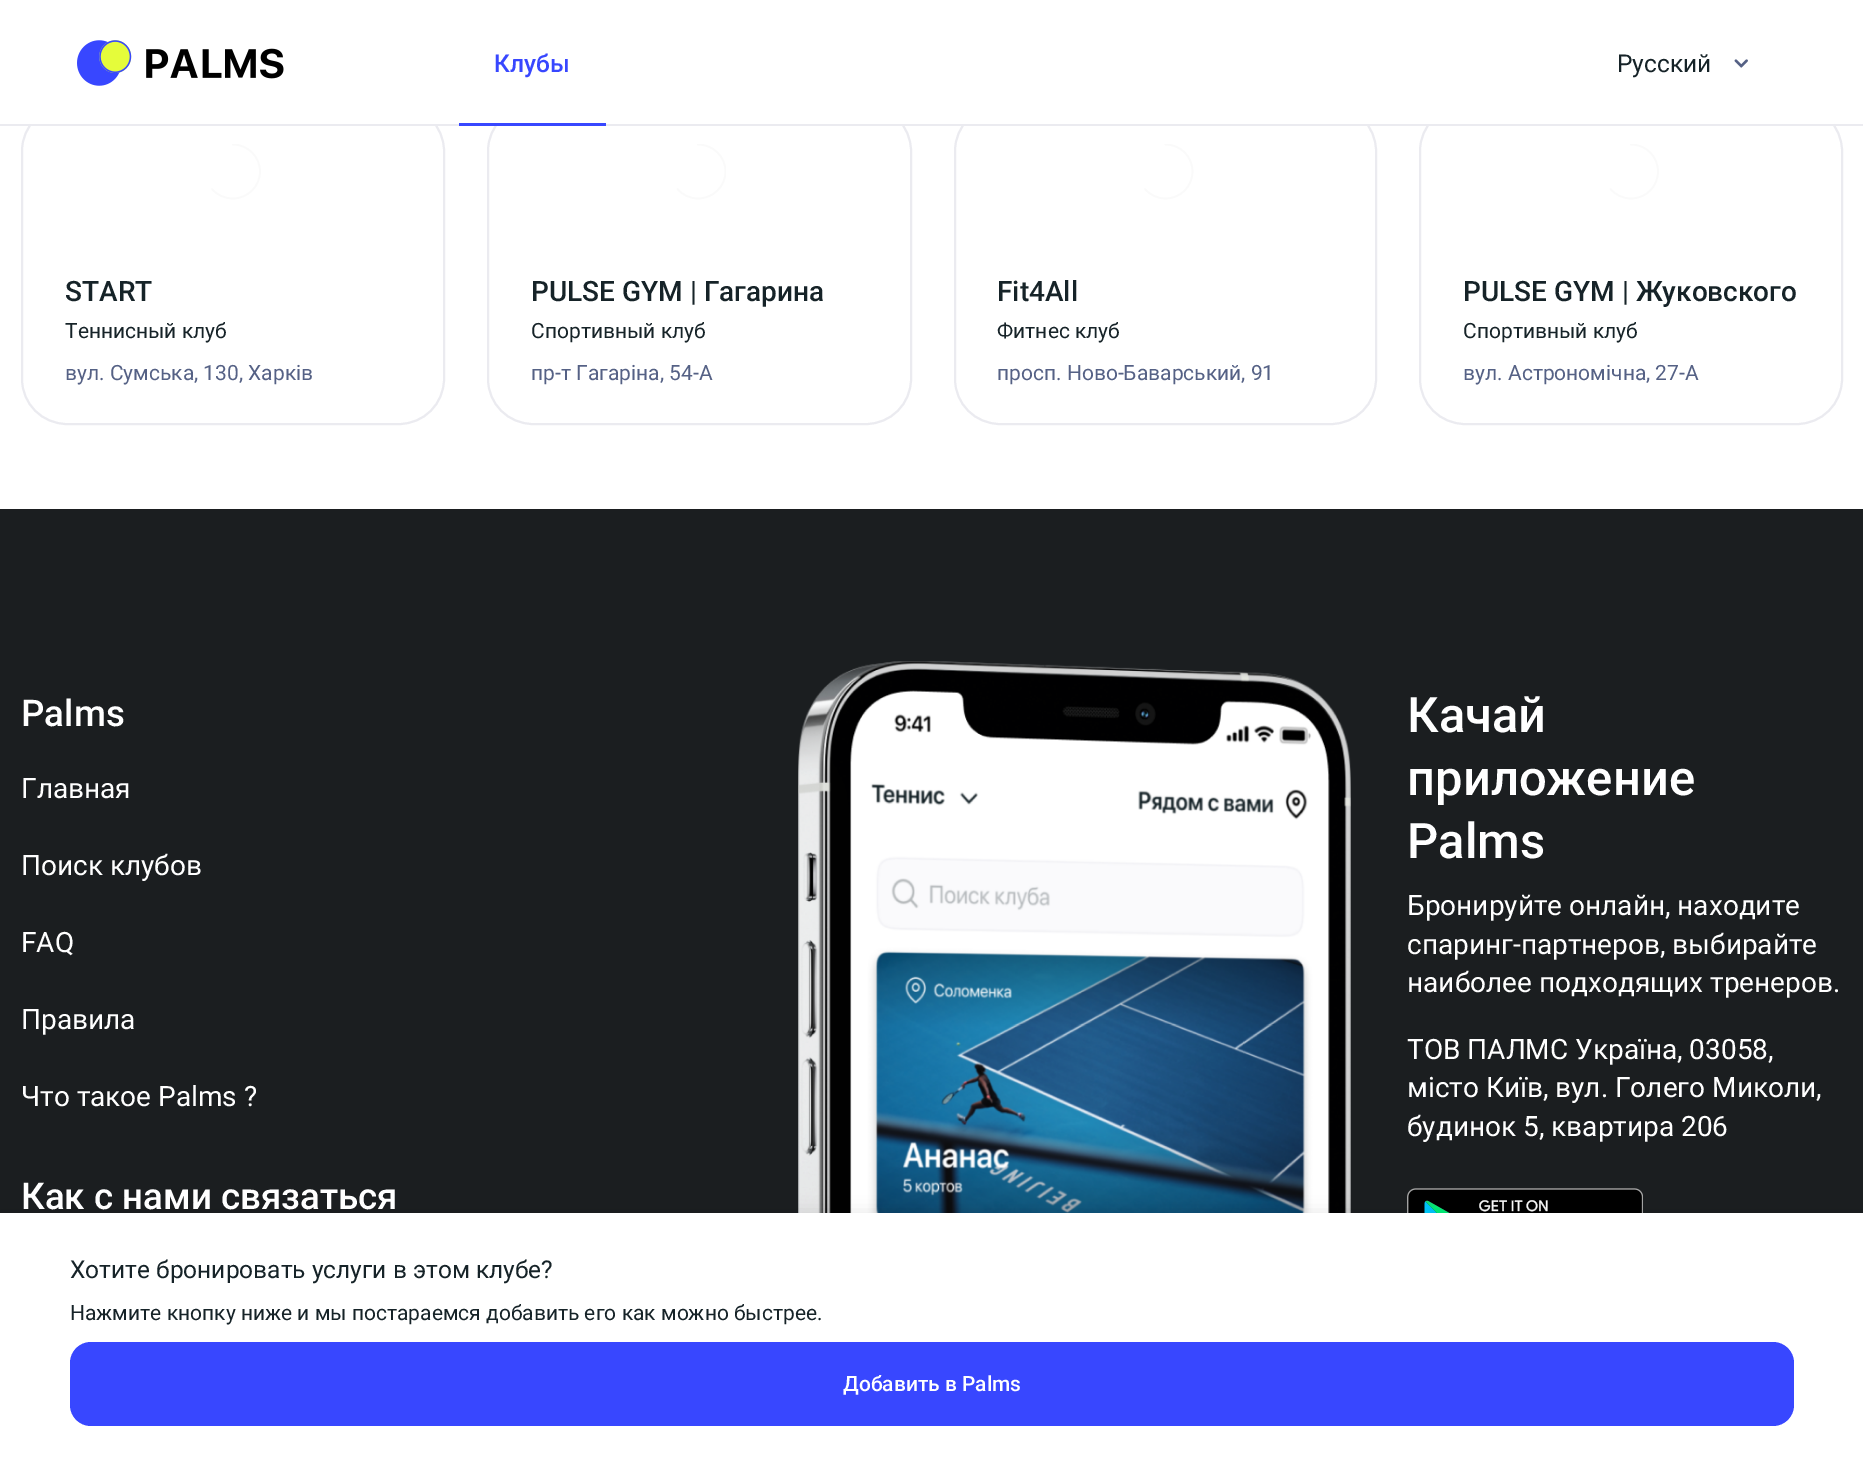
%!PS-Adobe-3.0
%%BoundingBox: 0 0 1863 1468
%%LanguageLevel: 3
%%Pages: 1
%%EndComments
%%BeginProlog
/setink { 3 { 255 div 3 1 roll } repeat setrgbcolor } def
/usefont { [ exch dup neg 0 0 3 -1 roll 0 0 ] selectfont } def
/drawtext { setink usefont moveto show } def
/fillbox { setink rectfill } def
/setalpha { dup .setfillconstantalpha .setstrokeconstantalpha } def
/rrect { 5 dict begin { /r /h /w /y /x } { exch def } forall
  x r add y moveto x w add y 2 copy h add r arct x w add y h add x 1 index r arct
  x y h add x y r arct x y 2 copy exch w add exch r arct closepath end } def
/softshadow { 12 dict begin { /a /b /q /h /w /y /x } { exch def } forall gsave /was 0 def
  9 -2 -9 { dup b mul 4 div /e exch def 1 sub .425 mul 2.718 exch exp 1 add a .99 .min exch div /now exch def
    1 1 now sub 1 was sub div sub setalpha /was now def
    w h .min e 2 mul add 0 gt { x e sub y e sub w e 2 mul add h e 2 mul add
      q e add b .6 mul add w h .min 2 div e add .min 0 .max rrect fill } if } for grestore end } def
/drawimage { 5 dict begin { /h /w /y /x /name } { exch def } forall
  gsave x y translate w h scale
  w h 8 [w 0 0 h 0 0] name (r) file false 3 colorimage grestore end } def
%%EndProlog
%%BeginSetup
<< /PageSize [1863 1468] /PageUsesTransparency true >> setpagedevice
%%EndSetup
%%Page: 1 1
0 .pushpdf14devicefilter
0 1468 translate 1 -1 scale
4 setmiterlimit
0 0 1863 1468 255 255 255 fillbox
235 235 240 setink
2 setlinewidth
22 106 422 318 45 rrect stroke
488 106 423 318 45 rrect stroke
955 106 421 318 45 rrect stroke
1420 106 422 318 45 rrect stroke
30 105 1804 19 255 255 255 fillbox
(assets/img1.rgb) 77 40 207 46 drawimage
(Клубы) 494 72 /Roboto-Medium 24.5 56 71 255 drawtext
0 124 1863 2 235 235 240 fillbox
459 123 147 3 56 71 255 fillbox
(Русский) 1617 72 /Roboto-Regular 24.5 22 35 40 drawtext
(assets/img2.rgb) 1734 59 14 9 drawimage
gsave
205 144 56 56 rectclip
250 250 250 setink
1.7 setlinewidth
1 setlinecap
233 144.5 moveto 247.5 144.5 260 156.5 260 171.5 curveto 260 186.5 247.5 198.5 233 198.5 curveto 224.5 198.5 217 195 212 189 curveto stroke
grestore
(START) 65 301 /Roboto-Medium 28 22 35 40 drawtext
(Теннисный клуб) 65 338 /Roboto-Regular 21 22 35 40 drawtext
(вул. Сумська, 130, Харків) 65 380 /Roboto-Regular 21 85 97 133 drawtext
gsave
670 144 56 56 rectclip
250 250 250 setink
1.7 setlinewidth
1 setlinecap
698 144.5 moveto 713 144.5 725.5 156.5 725.5 171.5 curveto 725.5 186.5 713 198.5 698 198.5 curveto 690 198.5 682.5 195 677.5 189 curveto stroke
grestore
(PULSE GYM | Гагарина) 531 301 /Roboto-Medium 28 22 35 40 drawtext
(Спортивный клуб) 531 338 /Roboto-Regular 21 22 35 40 drawtext
(пр-т Гагаріна, 54-А) 531 380 /Roboto-Regular 21 85 97 133 drawtext
gsave
1138 144 56 56 rectclip
250 250 250 setink
1.7 setlinewidth
1 setlinecap
1165.5 144.5 moveto 1180.5 144.5 1192.5 156.5 1192.5 171.5 curveto 1192.5 186.5 1180.5 198.5 1165.5 198.5 curveto 1157.5 198.5 1150 195 1145 189 curveto stroke
grestore
(Fit4All) 997 301 /Roboto-Medium 28 22 35 40 drawtext
(Фитнес клуб) 997 338 /Roboto-Regular 21 22 35 40 drawtext
(просп. Ново-Баварський, 91) 997 380 /Roboto-Regular 21 85 97 133 drawtext
gsave
1603 144 56 56 rectclip
250 250 250 setink
1.7 setlinewidth
1 setlinecap
1631 144.5 moveto 1646 144.5 1658 156.5 1658 171.5 curveto 1658 186.5 1646 198.5 1631 198.5 curveto 1623 198.5 1615.5 195 1610.5 189 curveto stroke
grestore
(PULSE GYM | Жуковского) 1463 301 /Roboto-Medium 28 22 35 40 drawtext
(Спортивный клуб) 1463 338 /Roboto-Regular 21 22 35 40 drawtext
(вул. Астрономічна, 27-А) 1463 380 /Roboto-Regular 21 85 97 133 drawtext
0 509 1863 704 27 30 32 fillbox
(assets/img3.rgb) 798 661 553 552 drawimage
(assets/img4.rgb) 1407 1188 236 25 drawimage
0 0 0 setink
0 1215 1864 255 0 9 0.12 softshadow
0 1213 1863 255 255 255 255 fillbox
(Хотите бронировать услуги в этом клубе?) 70 1278 /Roboto-Regular 24.5 22 35 40 drawtext
(Нажмите кнопку ниже и мы постараемся добавить его как можно быстрее.) 70 1320 /Roboto-Regular 21 22 35 40 drawtext
56 71 255 setink
70 1342 1724 84 21 rrect fill
(Добавить в Palms) 843 1391 /Roboto-Medium 21 255 255 255 drawtext
(Palms) 21 726 /Roboto-Medium 36.75 255 255 255 drawtext
(Главная) 21 798 /Roboto-Regular 28 255 255 255 drawtext
(Поиск клубов) 21 875 /Roboto-Regular 28 255 255 255 drawtext
(FAQ) 21 952 /Roboto-Regular 28 255 255 255 drawtext
(Правила) 21 1029 /Roboto-Regular 28 255 255 255 drawtext
(Что такое Palms ?) 21 1106 /Roboto-Regular 28 255 255 255 drawtext
(Как с нами связаться) 21 1209 /Roboto-Medium 36.75 255 255 255 drawtext
(Качай) 1407 732 /Roboto-Medium 49 255 255 255 drawtext
(приложение) 1407 795 /Roboto-Medium 49 255 255 255 drawtext
(Palms) 1407 858 /Roboto-Medium 49 255 255 255 drawtext
(Бронируйте онлайн, находите) 1407 915 /Roboto-Regular 28 255 255 255 drawtext
(спаринг-партнеров, выбирайте) 1407 954 /Roboto-Regular 28 255 255 255 drawtext
(наиболее подходящих тренеров.) 1407 992 /Roboto-Regular 28 255 255 255 drawtext
(ТОВ ПАЛМС Україна, 03058,) 1407 1059 /Roboto-Regular 28 255 255 255 drawtext
(місто Київ, вул. Голего Миколи,) 1407 1097 /Roboto-Regular 28 255 255 255 drawtext
(будинок 5, квартира 206) 1407 1136 /Roboto-Regular 28 255 255 255 drawtext
.poppdf14devicefilter showpage
%%EOF
